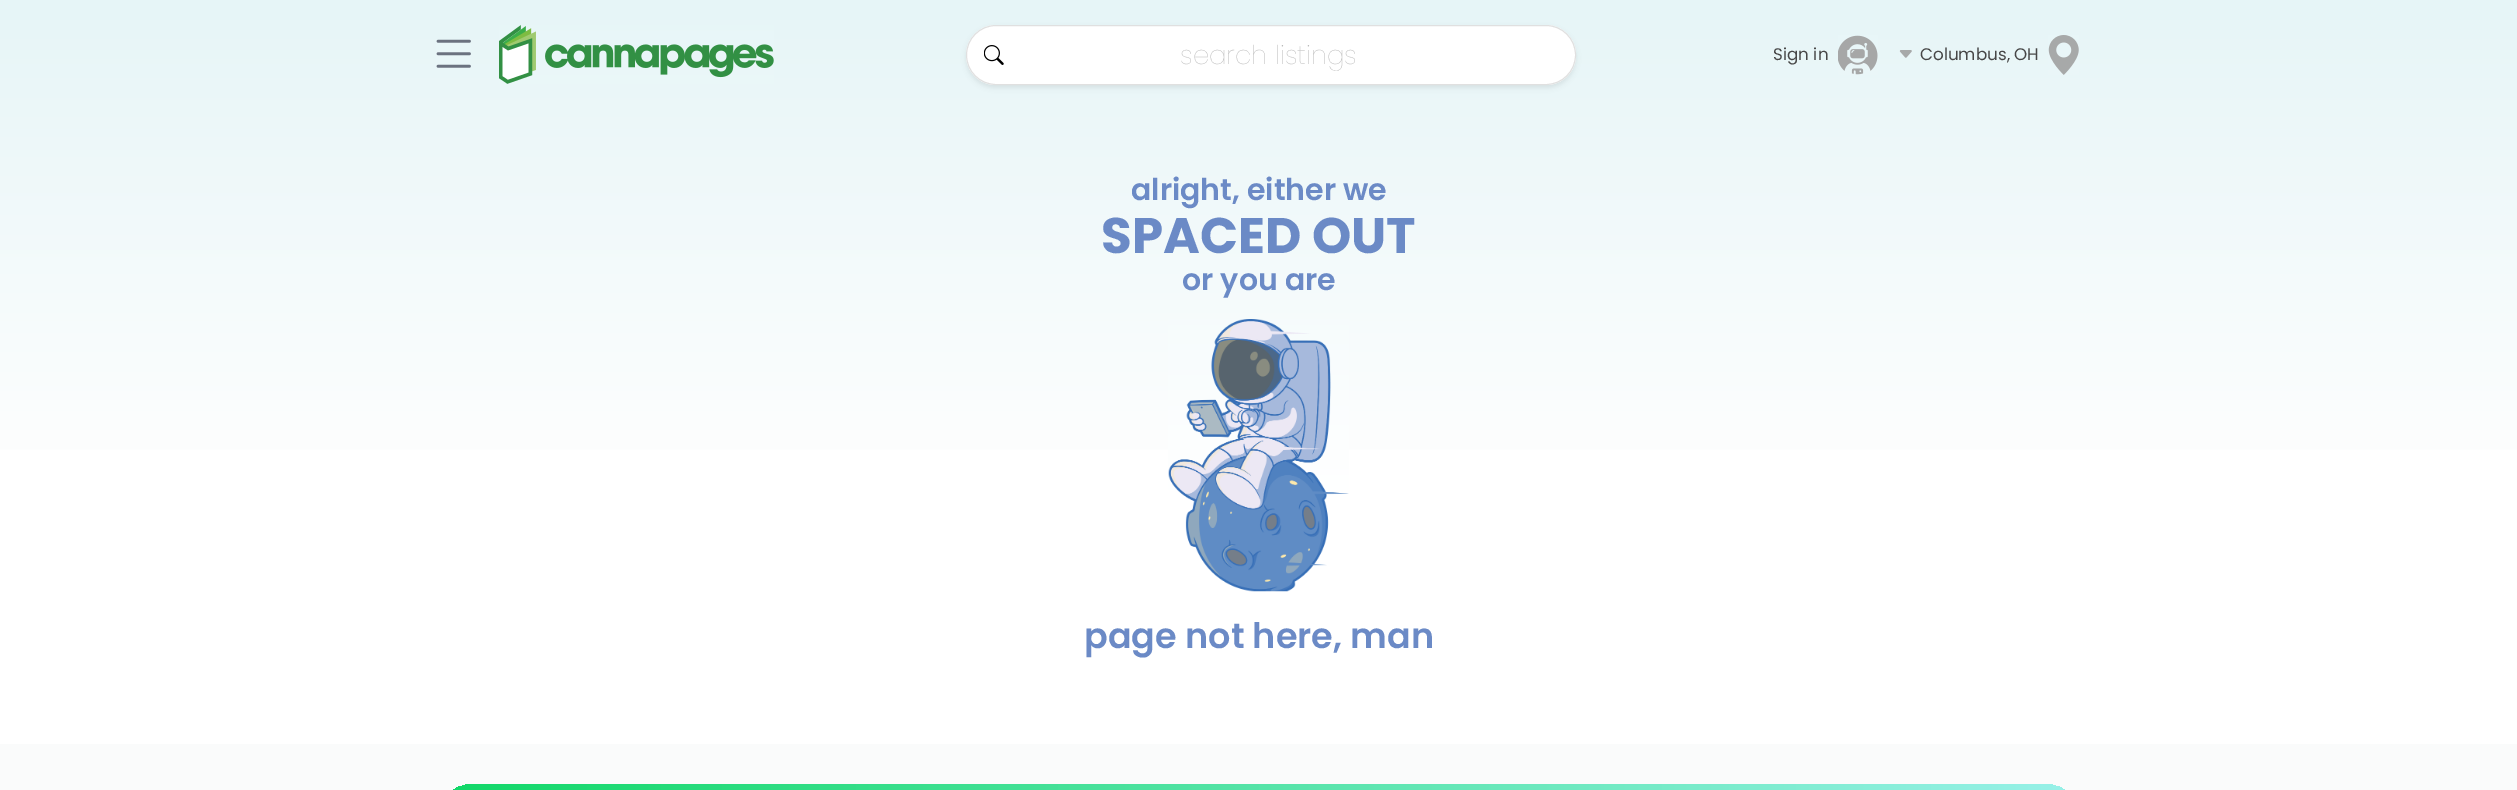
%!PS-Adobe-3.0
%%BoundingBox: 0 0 2517 790
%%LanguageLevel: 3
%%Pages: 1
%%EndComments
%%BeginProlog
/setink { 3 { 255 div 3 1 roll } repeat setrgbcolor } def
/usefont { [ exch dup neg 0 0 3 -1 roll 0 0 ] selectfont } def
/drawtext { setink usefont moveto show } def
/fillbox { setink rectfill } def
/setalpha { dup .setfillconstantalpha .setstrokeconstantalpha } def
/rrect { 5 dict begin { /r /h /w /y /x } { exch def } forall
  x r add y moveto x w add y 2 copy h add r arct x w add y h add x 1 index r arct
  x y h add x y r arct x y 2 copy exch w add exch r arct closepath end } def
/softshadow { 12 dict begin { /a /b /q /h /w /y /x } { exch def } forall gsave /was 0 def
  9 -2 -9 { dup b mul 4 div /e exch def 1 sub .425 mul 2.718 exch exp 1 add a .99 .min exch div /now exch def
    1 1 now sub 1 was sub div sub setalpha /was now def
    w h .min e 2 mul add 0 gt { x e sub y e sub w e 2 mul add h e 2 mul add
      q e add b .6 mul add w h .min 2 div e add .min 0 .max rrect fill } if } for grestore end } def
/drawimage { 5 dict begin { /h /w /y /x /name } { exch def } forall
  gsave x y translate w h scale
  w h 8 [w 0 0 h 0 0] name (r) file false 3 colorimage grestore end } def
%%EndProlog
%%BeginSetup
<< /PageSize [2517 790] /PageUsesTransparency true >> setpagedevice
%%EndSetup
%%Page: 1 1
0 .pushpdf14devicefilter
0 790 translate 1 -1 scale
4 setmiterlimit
0 0 2517 790 255 255 255 fillbox
gsave 0 0 moveto 2517 0 lineto 2517 450 lineto 0 450 lineto closepath clip newpath
<< /ShadingType 2 /ColorSpace /DeviceRGB /Coords [1259 0 1259 500] /Extend [true true] /Function << /FunctionType 2 /Domain [0 1] /C0 [0.902 0.961 0.969] /C1 [1 1 1] /N 1 >> >> shfill grestore
(assets/img1.rgb) 436 39 35 29 drawimage
(assets/img2.rgb) 499 25 275 59 drawimage
0 0 0 setink
966 28 610 60 30 2.5 0.07 softshadow
255 255 255 setink
966 25 610 60 30 rrect fill
(assets/img3.rgb) 984 45 20 20 drawimage
224 224 224 setink
966.5 25.5 609 59 29.5 rrect stroke
(search listings) 1180 64 /Poppins-Thin 26 187 187 187 drawtext
(Sign in) 1773 60 /Poppins-Regular 16.75 71 71 71 drawtext
(assets/img4.rgb) 1838 35 40 40 drawimage
(assets/img5.rgb) 1899 50 13 8 drawimage
(Columbus, OH) 1920 60 /Poppins-Regular 16.75 71 71 71 drawtext
(assets/img6.rgb) 2048 35 31 40 drawimage
(alright, either we) 1131 200 /Poppins-SemiBold 30 107 138 198 drawtext
(SPACED OUT) 1101 253 /Poppins-Bold 50 107 138 198 drawtext
(or you are) 1182 290 /Poppins-SemiBold 30 107 138 198 drawtext
(assets/img7.rgb) 1168 319 181 273 drawimage
(page not here, man) 1084 648 /Poppins-SemiBold 35 107 138 198 drawtext
0 744 2517 46 250 251 251 fillbox
gsave 434 784 1650 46 40 rrect clip newpath
<< /ShadingType 2 /ColorSpace /DeviceRGB /Coords [434 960 2084 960] /Extend [true true] /Function << /FunctionType 2 /Domain [0 1] /C0 [0.063 0.847 0.404] /C1 [0.6 0.945 0.914] /N 1 >> >> shfill grestore
.poppdf14devicefilter showpage
%%EOF
